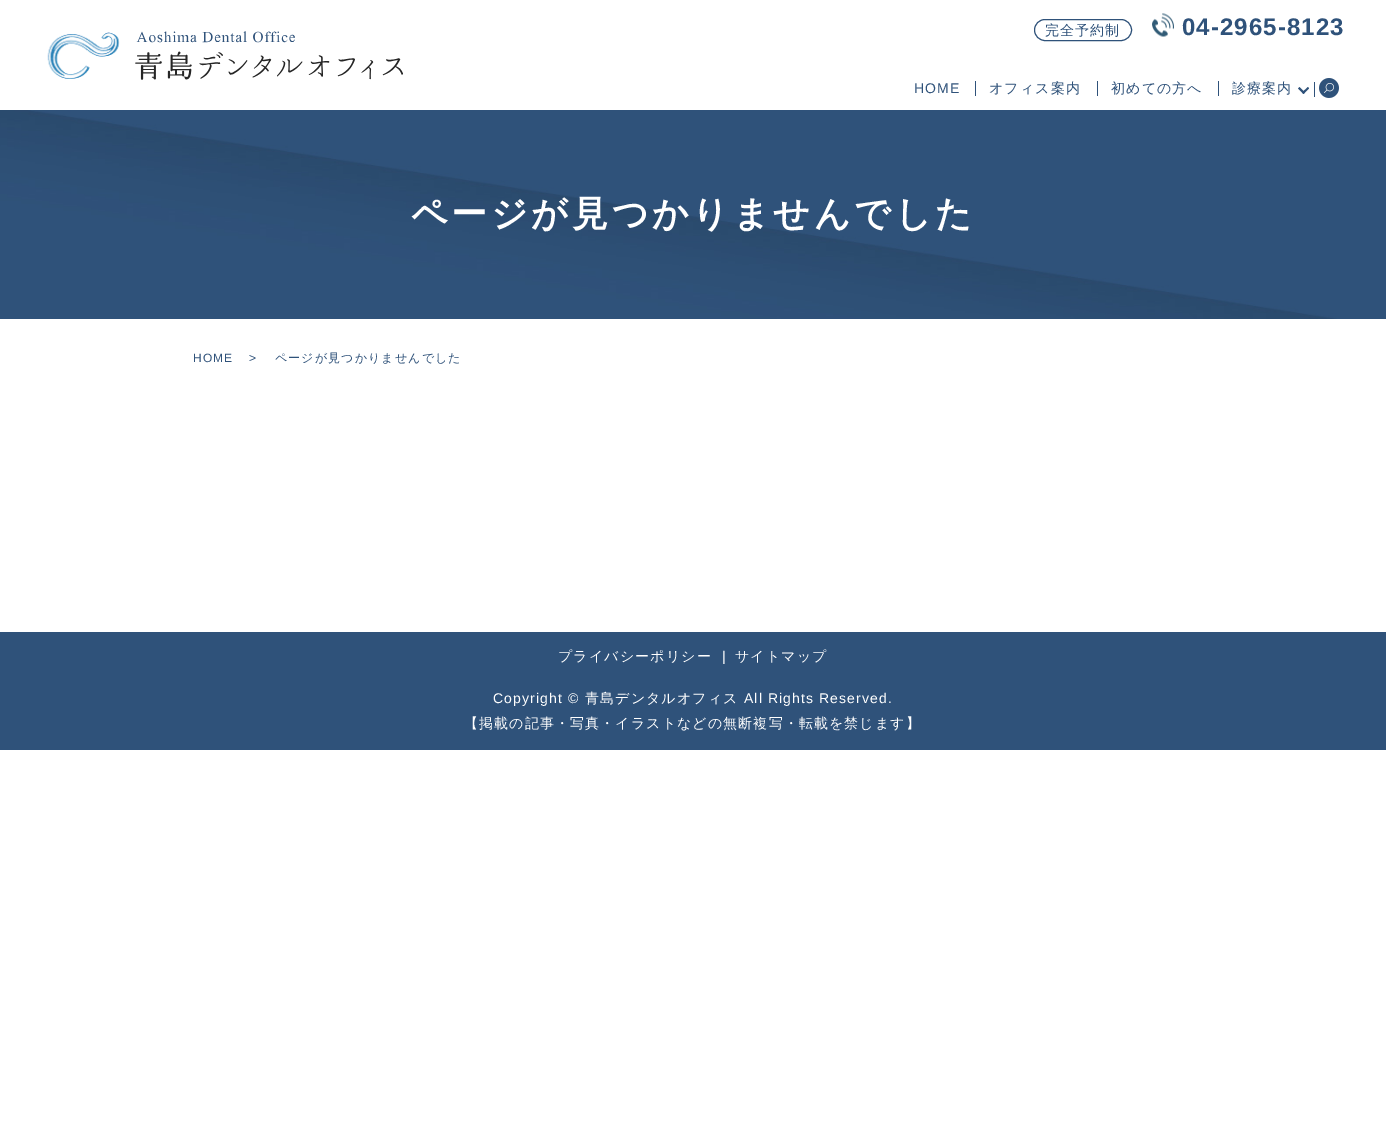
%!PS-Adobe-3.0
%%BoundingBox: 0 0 1386 1135
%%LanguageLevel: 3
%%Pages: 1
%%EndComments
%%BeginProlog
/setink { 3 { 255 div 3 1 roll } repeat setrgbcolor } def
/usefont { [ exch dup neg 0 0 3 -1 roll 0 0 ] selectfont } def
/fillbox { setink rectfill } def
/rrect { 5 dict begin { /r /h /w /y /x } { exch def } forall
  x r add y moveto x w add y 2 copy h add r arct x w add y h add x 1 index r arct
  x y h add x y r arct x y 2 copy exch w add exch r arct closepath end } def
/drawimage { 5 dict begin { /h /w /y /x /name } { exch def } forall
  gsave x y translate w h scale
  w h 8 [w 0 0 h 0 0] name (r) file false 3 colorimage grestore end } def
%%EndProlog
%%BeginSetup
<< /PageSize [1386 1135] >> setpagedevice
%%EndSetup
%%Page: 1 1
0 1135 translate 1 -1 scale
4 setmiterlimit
0 0 1386 1135 255 255 255 fillbox
47 82 122 setink
1034.5 19.5 97 21 10.5 rrect stroke
/WenQuanYiZenHei-Medium 14 usefont
1045 35 moveto 1.1 0 (完全予約制) ashow
(assets/img1.rgb) 1152 13 22 24 drawimage
/LiberationSans-Bold 24 usefont
1182 35 moveto 1.1 0 (04-2965-8123) ashow
(assets/img2.rgb) 47 31 356 49 drawimage
/LiberationSans-Regular 14 usefont
914 93 moveto 1.1 0 (HOME) ashow
975 81 1 15 47 82 122 fillbox
/WenQuanYiZenHei-Medium 14 usefont
989 93 moveto 1.1 0 (オフィス案内) ashow
1097 81 1 15 47 82 122 fillbox
1111 93 moveto 1.1 0 (初めての方へ) ashow
1218 81 1 15 47 82 122 fillbox
1232 93 moveto 1.1 0 (診療案内) ashow
1309 88.5 moveto 1303.5 94 lineto 1302 92.5 lineto 1308 87 lineto closepath fill
1305 92.5 moveto 1303.5 94 lineto 1298 88.5 lineto 1299.5 87 lineto closepath fill
(assets/img3.rgb) 1319 78 20 20 drawimage
1314 82 1 15 47 82 122 fillbox
(assets/img4.rgb) 0 110 1386 209 drawimage
/WenQuanYiZenHei-Bold 36 usefont
255 255 255 setink
411 226 moveto 3.6 0 (ページが見つかりませんでした) ashow
/LiberationSans-Regular 12 usefont
47 82 122 setink
193 362 moveto 1.1 0 (HOME) ashow
249 362 moveto 1.1 0 (>) ashow
/WenQuanYiZenHei-Medium 12 usefont
275 362 moveto 1.1 0 (ページが見つかりませんでした) ashow
0 632 1386 118 47 82 122 fillbox
/WenQuanYiZenHei-Medium 14 usefont
255 255 255 setink
558 661 moveto 1.1 0 (プライバシーポリシー) ashow
/LiberationSans-Regular 14 usefont
722 661 moveto 1.1 0 (|) ashow
/WenQuanYiZenHei-Medium 14 usefont
735 661 moveto 1.1 0 (サイトマップ) ashow
/LiberationSans-Regular 14 usefont
493 703 moveto 1.1 0 (Copyright ©) ashow
/WenQuanYiZenHei-Medium 14 usefont
585 703 moveto 1.1 0 (青島デンタルオフィス) ashow
/LiberationSans-Regular 14 usefont
744 703 moveto 1.1 0 (All Rights Reserved.) ashow
/WenQuanYiZenHei-Medium 14 usefont
464 728 moveto 1.1 0 (【掲載の記事・写真・イラストなどの無断複写・転載を禁じます】) ashow
showpage
%%EOF
